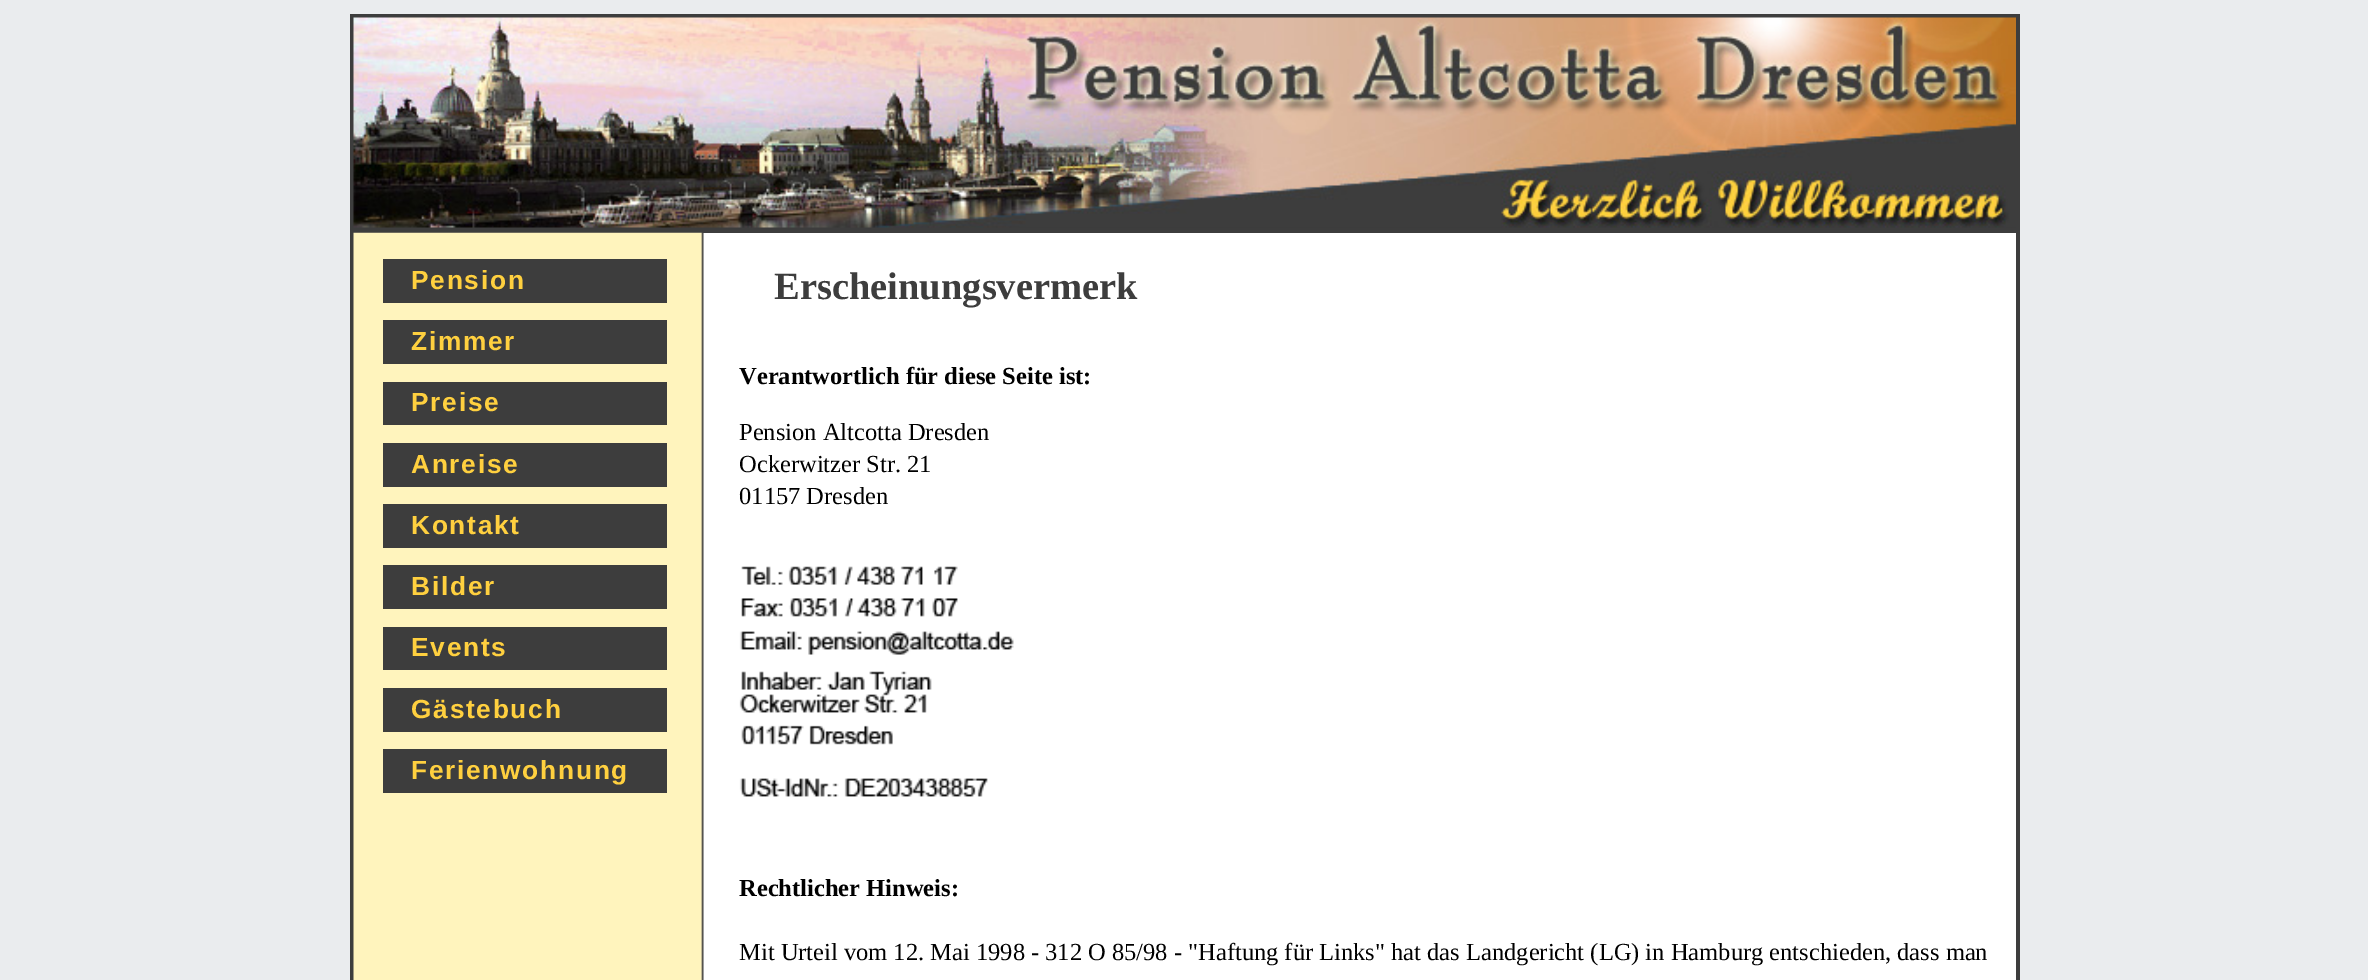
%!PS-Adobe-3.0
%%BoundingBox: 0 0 2368 980
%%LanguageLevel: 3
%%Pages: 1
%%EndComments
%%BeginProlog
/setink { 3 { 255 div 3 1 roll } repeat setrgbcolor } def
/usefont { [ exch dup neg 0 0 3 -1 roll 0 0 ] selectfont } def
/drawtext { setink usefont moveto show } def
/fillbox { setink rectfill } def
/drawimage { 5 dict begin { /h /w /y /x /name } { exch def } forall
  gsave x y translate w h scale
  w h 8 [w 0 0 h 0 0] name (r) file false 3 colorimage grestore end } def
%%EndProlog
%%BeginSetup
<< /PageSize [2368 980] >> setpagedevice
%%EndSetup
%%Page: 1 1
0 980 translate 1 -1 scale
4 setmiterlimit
0 0 2368 980 234 236 238 fillbox
350 14 1670 966 61 61 61 fillbox
(assets/img1.rgb) 353 17 1663 211 drawimage
703 233 1313 747 255 255 255 fillbox
(assets/img2.rgb) 353 232 351 748 drawimage
383 259 284 44 61 61 61 fillbox
/LiberationSans-Bold 26.25 usefont
255 208 63 setink
411 289 moveto 1.75 0 (Pension) ashow
383 320 284 44 61 61 61 fillbox
255 208 63 setink
411 350 moveto 1.75 0 (Zimmer) ashow
383 382 284 43 61 61 61 fillbox
255 208 63 setink
411 411 moveto 1.75 0 (Preise) ashow
383 443 284 44 61 61 61 fillbox
255 208 63 setink
411 473 moveto 1.75 0 (Anreise) ashow
383 504 284 44 61 61 61 fillbox
255 208 63 setink
411 534 moveto 1.75 0 (Kontakt) ashow
383 565 284 44 61 61 61 fillbox
255 208 63 setink
411 595 moveto 1.75 0 (Bilder) ashow
383 627 284 43 61 61 61 fillbox
255 208 63 setink
411 656 moveto 1.75 0 (Events) ashow
383 688 284 44 61 61 61 fillbox
255 208 63 setink
411 718 moveto 1.75 0 (Gästebuch) ashow
383 749 284 44 61 61 61 fillbox
255 208 63 setink
411 779 moveto 1.75 0 (Ferienwohnung) ashow
(Erscheinungsvermerk) 774 299 /LiberationSerif-Bold 38.5 61 61 61 drawtext
(Verantwortlich für diese Seite ist:) 739 384 /LiberationSerif-Bold 24.5 0 0 0 drawtext
(Pension Altcotta Dresden) 739 440 /LiberationSerif-Regular 24.5 0 0 0 drawtext
(Ockerwitzer Str. 21) 739 472 /LiberationSerif-Regular 24.5 0 0 0 drawtext
(01157 Dresden) 739 504 /LiberationSerif-Regular 24.5 0 0 0 drawtext
(assets/img3.rgb) 739 566 275 231 drawimage
(Rechtlicher Hinweis:) 739 896 /LiberationSerif-Bold 24.5 0 0 0 drawtext
(Mit Urteil vom 12. Mai 1998 - 312 O 85/98 - "Haftung für Links" hat das Landgericht \(LG\) in Hamburg entschieden, dass man) 739 960 /LiberationSerif-Regular 24.5 0 0 0 drawtext
showpage
%%EOF
